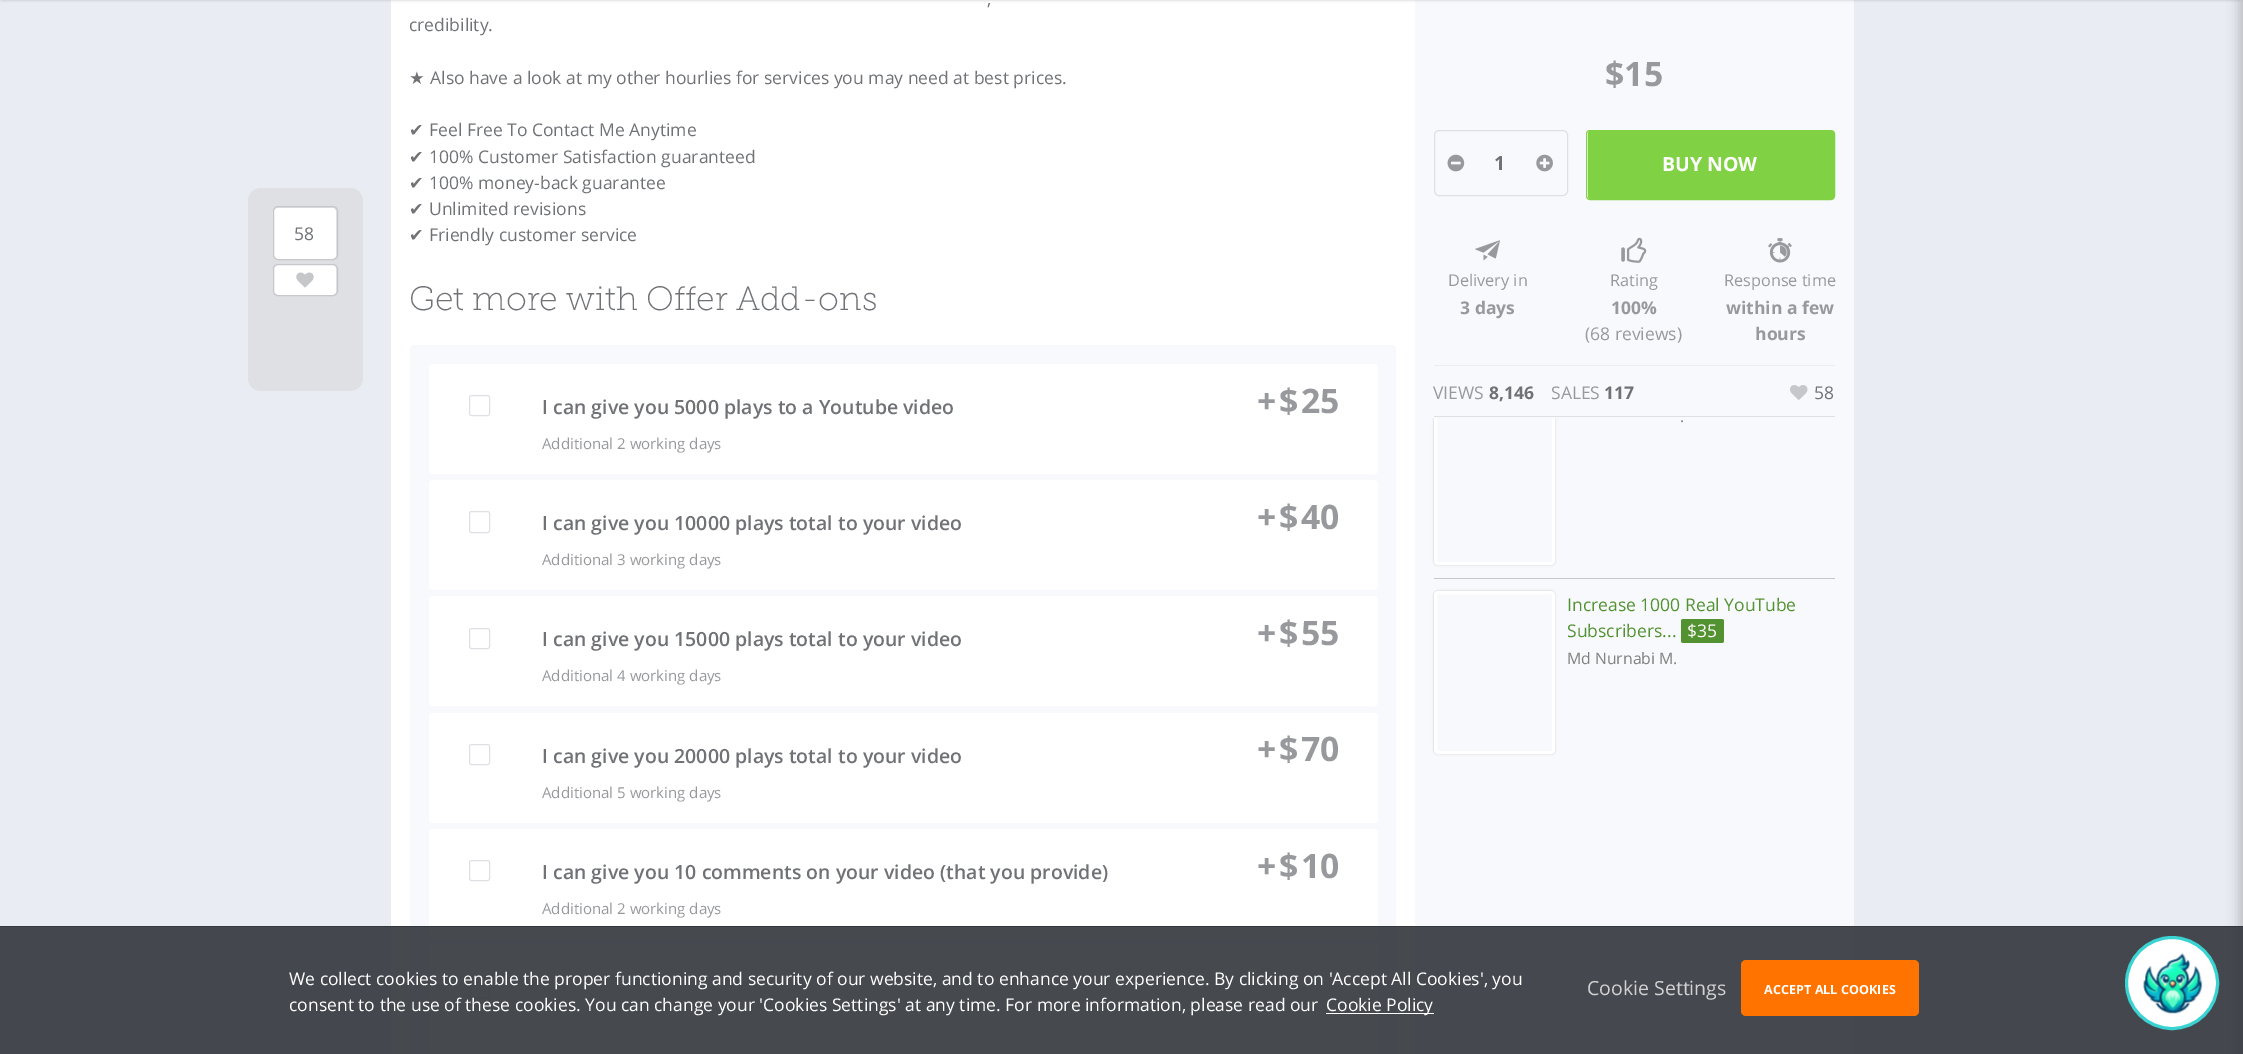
%!PS-Adobe-3.0
%%BoundingBox: 0 0 2243 1054
%%LanguageLevel: 3
%%Pages: 1
%%EndComments
%%BeginProlog
/setink { 3 { 255 div 3 1 roll } repeat setrgbcolor } def
/usefont { [ exch dup neg 0 0 3 -1 roll 0 0 ] selectfont } def
/drawtext { setink usefont moveto show } def
/fillbox { setink rectfill } def
/setalpha { dup .setfillconstantalpha .setstrokeconstantalpha } def
/disc { newpath 0 360 arc closepath } def
/rrect { 5 dict begin { /r /h /w /y /x } { exch def } forall
  x r add y moveto x w add y 2 copy h add r arct x w add y h add x 1 index r arct
  x y h add x y r arct x y 2 copy exch w add exch r arct closepath end } def
/softshadow { 12 dict begin { /a /b /q /h /w /y /x } { exch def } forall gsave /was 0 def
  9 -2 -9 { dup b mul 4 div /e exch def 1 sub .425 mul 2.718 exch exp 1 add a .99 .min exch div /now exch def
    1 1 now sub 1 was sub div sub setalpha /was now def
    w h .min e 2 mul add 0 gt { x e sub y e sub w e 2 mul add h e 2 mul add
      q e add b .6 mul add w h .min 2 div e add .min 0 .max rrect fill } if } for grestore end } def
/drawimage { 5 dict begin { /h /w /y /x /name } { exch def } forall
  gsave x y translate w h scale
  w h 8 [w 0 0 h 0 0] name (r) file false 3 colorimage grestore end } def
%%EndProlog
%%BeginSetup
<< /PageSize [2243 1054] /PageUsesTransparency true >> setpagedevice
%%EndSetup
%%Page: 1 1
0 .pushpdf14devicefilter
0 1054 translate 1 -1 scale
4 setmiterlimit
0 0 2243 1054 233 236 242 fillbox
391 0 1024 1054 255 255 255 fillbox
1415 418 439 636 248 249 252 fillbox
gsave
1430 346 moveto 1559 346 lineto 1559 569 lineto 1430 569 lineto closepath 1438 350 moveto 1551 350 lineto 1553 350 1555 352 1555 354 curveto 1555 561 lineto 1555 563 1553 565 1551 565 curveto 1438 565 lineto 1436 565 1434 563 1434 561 curveto 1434 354 lineto 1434 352 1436 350 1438 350 curveto closepath eoclip newpath
0 0 0 setink
1434 350 121 215 4 1 0.2 softshadow
grestore
255 255 255 setink
3 setlinewidth
1435.5 351.5 118 212 2.5 rrect stroke
1415 0 439 418 248 249 252 fillbox
50 53 59 setink
1 -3 2242 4 0 1 0.15 softshadow
223 224 227 setink
248 188 115 203 13 rrect fill
255 255 255 setink
274 208 62 51 4 rrect fill
198 199 202 setink
1 setlinewidth
273.5 206.5 64 53 4.5 rrect stroke
(58) 294 240 /OpenSans-Regular 17.5 112 114 118 drawtext
255 255 255 setink
274 265 62 30 4 rrect fill
198 199 202 setink
273.5 264.5 64 31 4.5 rrect stroke
(assets/img1.rgb) 296 272 18 16 drawimage
(,) 987 5 /OpenSans-Regular 17.5 112 114 118 drawtext
(credibility.) 409 31 /OpenSans-Regular 17.5 112 114 118 drawtext
(★) 409 84 /DejaVuSans-Regular 17.5 112 114 118 drawtext
(Also have a look at my other hourlies for services you may need at best prices.) 430 84 /OpenSans-Regular 17.5 112 114 118 drawtext
(✔) 409 136 /DejaVuSans-Regular 17.5 112 114 118 drawtext
(Feel Free To Contact Me Anytime) 429 136 /OpenSans-Regular 17.5 112 114 118 drawtext
(✔) 409 163 /DejaVuSans-Regular 17.5 112 114 118 drawtext
(100% Customer Satisfaction guaranteed) 429 163 /OpenSans-Regular 17.5 112 114 118 drawtext
(✔) 409 189 /DejaVuSans-Regular 17.5 112 114 118 drawtext
(100% money-back guarantee) 429 189 /OpenSans-Regular 17.5 112 114 118 drawtext
(✔) 409 215 /DejaVuSans-Regular 17.5 112 114 118 drawtext
(Unlimited revisions) 429 215 /OpenSans-Regular 17.5 112 114 118 drawtext
(✔) 409 241 /DejaVuSans-Regular 17.5 112 114 118 drawtext
(Friendly customer service) 429 241 /OpenSans-Regular 17.5 112 114 118 drawtext
(Get more with Offer Add-ons) 409 310 /MuseoSlab-Regular 33.75 112 114 118 drawtext
248 249 252 setink
410 345 986 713 4 rrect fill
255 255 255 setink
429 364 949 110 4 rrect fill
223 224 227 setink
469.5 395.5 20 20 2 rrect stroke
(I can give you 5000 plays to a Youtube video) 542 414 /OpenSans-SemiBold 19.5 112 114 118 drawtext
(Additional 2 working days) 542 449 /OpenSans-Regular 15 152 153 156 drawtext
(+) 1257 413 /OpenSans-Bold 33.75 152 153 156 drawtext
($) 1279 413 /OpenSans-Bold 33.75 152 153 156 drawtext
(25) 1301 413 /OpenSans-Bold 33.75 152 153 156 drawtext
255 255 255 setink
429 480 949 110 4 rrect fill
223 224 227 setink
469.5 511.5 20 21 2 rrect stroke
(I can give you 10000 plays total to your video) 542 530 /OpenSans-SemiBold 19.5 112 114 118 drawtext
(Additional 3 working days) 542 565 /OpenSans-Regular 15 152 153 156 drawtext
(+) 1257 529 /OpenSans-Bold 33.75 152 153 156 drawtext
($) 1279 529 /OpenSans-Bold 33.75 152 153 156 drawtext
(40) 1301 529 /OpenSans-Bold 33.75 152 153 156 drawtext
255 255 255 setink
429 596 949 110 4 rrect fill
223 224 227 setink
469.5 628.5 20 20 2 rrect stroke
(I can give you 15000 plays total to your video) 542 646 /OpenSans-SemiBold 19.5 112 114 118 drawtext
(Additional 4 working days) 542 681 /OpenSans-Regular 15 152 153 156 drawtext
(+) 1257 645 /OpenSans-Bold 33.75 152 153 156 drawtext
($) 1279 645 /OpenSans-Bold 33.75 152 153 156 drawtext
(55) 1301 645 /OpenSans-Bold 33.75 152 153 156 drawtext
255 255 255 setink
429 713 949 110 4 rrect fill
223 224 227 setink
469.5 744.5 20 20 2 rrect stroke
(I can give you 20000 plays total to your video) 542 763 /OpenSans-SemiBold 19.5 112 114 118 drawtext
(Additional 5 working days) 542 798 /OpenSans-Regular 15 152 153 156 drawtext
(+) 1257 761 /OpenSans-Bold 33.75 152 153 156 drawtext
($) 1279 761 /OpenSans-Bold 33.75 152 153 156 drawtext
(70) 1301 761 /OpenSans-Bold 33.75 152 153 156 drawtext
255 255 255 setink
429 829 949 110 4 rrect fill
223 224 227 setink
469.5 860.5 20 20 2 rrect stroke
(I can give you 10 comments on your video \(that you provide\)) 542 879 /OpenSans-SemiBold 19.5 112 114 118 drawtext
(Additional 2 working days) 542 914 /OpenSans-Regular 15 152 153 156 drawtext
(+) 1257 878 /OpenSans-Bold 33.75 152 153 156 drawtext
($) 1279 878 /OpenSans-Bold 33.75 152 153 156 drawtext
(10) 1301 878 /OpenSans-Bold 33.75 152 153 156 drawtext
255 255 255 setink
429 945 949 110 4 rrect fill
223 224 227 setink
469.5 976.5 20 21 2 rrect stroke
($15) 1605 86 /OpenSans-Bold 33.75 152 153 156 drawtext
223 224 227 setink
1434.5 130.5 133 65 4.5 rrect stroke
(assets/img2.rgb) 1447 154 18 18 drawimage
(1) 1494 170 /OpenSans-Bold 19.5 112 114 118 drawtext
(assets/img3.rgb) 1536 154 17 18 drawimage
128 209 68 setink
1588 131 246 68 2.5 rrect fill
1586.5 130.5 248 69 3.5 rrect stroke
(BUY NOW) 1662 171 /OpenSans-Bold 19.5 255 255 255 drawtext
(assets/img4.rgb) 1475 240 25 21 drawimage
(Delivery in) 1448 286 /OpenSans-Regular 16.25 152 153 156 drawtext
(3 days) 1460 314 /OpenSans-Bold 17.5 152 153 156 drawtext
(assets/img5.rgb) 1621 237 26 26 drawimage
(Rating) 1610 286 /OpenSans-Regular 16.25 152 153 156 drawtext
(100%) 1611 314 /OpenSans-Bold 17.5 152 153 156 drawtext
(\(68 reviews\)) 1585 340 /OpenSans-Regular 17.5 152 153 156 drawtext
(assets/img6.rgb) 1768 238 24 25 drawimage
(Response time) 1724 286 /OpenSans-Regular 16.25 152 153 156 drawtext
(within a few) 1726 314 /OpenSans-Bold 17.5 152 153 156 drawtext
(hours) 1755 340 /OpenSans-Bold 17.5 152 153 156 drawtext
1434 365 401 1 236 237 239 fillbox
(VIEWS) 1433 399 /OpenSans-Regular 17.5 152 153 156 drawtext
(8,146) 1489 399 /OpenSans-Bold 17.5 112 114 118 drawtext
(SALES) 1551 399 /OpenSans-Regular 17.5 152 153 156 drawtext
(117) 1604 399 /OpenSans-Bold 17.5 112 114 118 drawtext
(assets/img7.rgb) 1790 385 18 15 drawimage
(58) 1814 399 /OpenSans-Regular 17.5 112 114 118 drawtext
1434 416 401 1 223 224 227 fillbox
1434 578 401 1 198 199 202 fillbox
(.) 1680 422 /OpenSans-Regular 15.75 128 128 128 drawtext
gsave
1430 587 moveto 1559 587 lineto 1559 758 lineto 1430 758 lineto closepath 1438 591 moveto 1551 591 lineto 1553 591 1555 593 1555 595 curveto 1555 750 lineto 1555 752 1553 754 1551 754 curveto 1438 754 lineto 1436 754 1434 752 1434 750 curveto 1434 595 lineto 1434 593 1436 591 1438 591 curveto closepath eoclip newpath
0 0 0 setink
1434 591 121 163 4 1 0.2 softshadow
grestore
255 255 255 setink
3 setlinewidth
1435.5 592.5 118 160 2.5 rrect stroke
(Increase 1000 Real YouTube) 1567 611 /OpenSans-Regular 17.5 83 146 49 drawtext
(Subscribers...) 1567 637 /OpenSans-Regular 17.5 83 146 49 drawtext
1683.5 619 moveto 1698 619 lineto 1698 643 lineto 1683.5 643 lineto 1682 643 1681 642 1681 640.5 curveto 1681 621.5 lineto 1681 620 1682 619 1683.5 619 curveto closepath fill
1698 619 moveto 1721.5 619 lineto 1723 619 1724 620 1724 621.5 curveto 1724 640.5 lineto 1724 642 1723 643 1721.5 643 curveto 1698 643 lineto closepath fill
($35) 1687 637 /OpenSans-Regular 17.5 255 255 255 drawtext
(Md Nurnabi M.) 1567 664 /OpenSans-Regular 15.75 128 128 128 drawtext
0 0 0 setink
2239 0 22 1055 0 6 0.2 softshadow
0.9 setalpha
0 926 2243 128 50 53 59 fillbox
0 926 2243 1 50 53 59 fillbox
1 setalpha
(We collect cookies to enable the proper functioning and security of our website, and to enhance your experience. By clicking on 'Accept All Cookies', you) 289 985 /OpenSans-Regular 17.5 255 255 255 drawtext
(consent to the use of these cookies. You can change your 'Cookies Settings' at any time. For more information, please read our) 289 1011 /OpenSans-Regular 17.5 255 255 255 drawtext
1326 1013 108 1 255 255 255 fillbox
(Cookie Policy) 1326 1011 /OpenSans-Regular 17.5 255 255 255 drawtext
(Cookie Settings) 1587 995 /OpenSans-Regular 19.5 209 209 211 drawtext
255 115 0 setink
1741 960 178 56 5 rrect fill
/OpenSans-Bold 12.5 usefont
255 255 255 setink
1764 994 moveto 0.1 0 (ACCEPT ALL COOKIES) ashow
2172 983 45.5 disc gsave fill grestore
56 211 210 setink
stroke
(assets/img8.rgb) 2143 953 60 61 drawimage
.poppdf14devicefilter showpage
%%EOF
